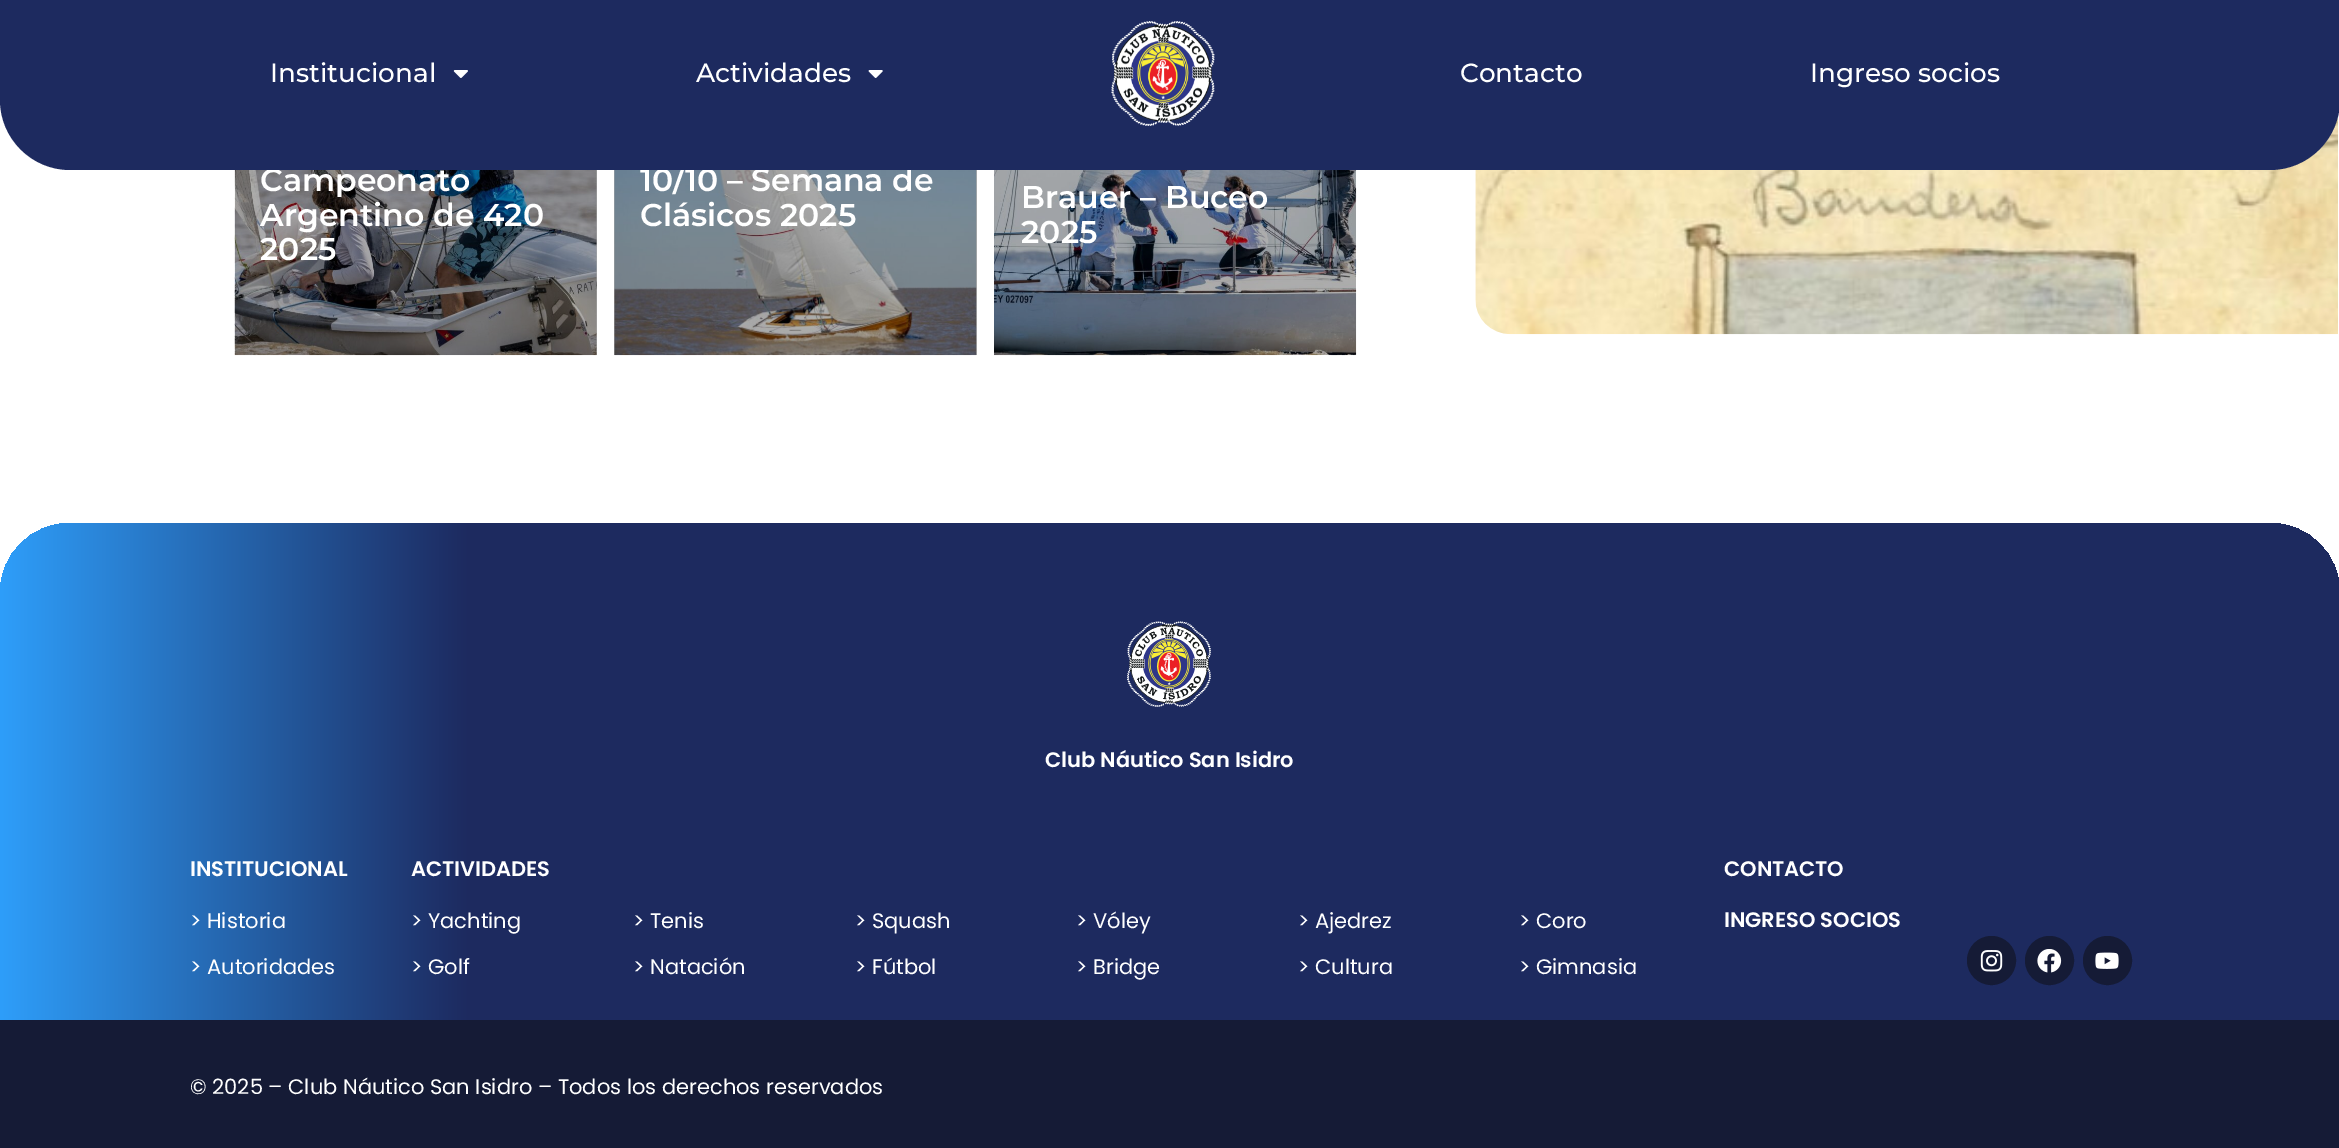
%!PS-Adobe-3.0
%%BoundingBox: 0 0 2339 1148
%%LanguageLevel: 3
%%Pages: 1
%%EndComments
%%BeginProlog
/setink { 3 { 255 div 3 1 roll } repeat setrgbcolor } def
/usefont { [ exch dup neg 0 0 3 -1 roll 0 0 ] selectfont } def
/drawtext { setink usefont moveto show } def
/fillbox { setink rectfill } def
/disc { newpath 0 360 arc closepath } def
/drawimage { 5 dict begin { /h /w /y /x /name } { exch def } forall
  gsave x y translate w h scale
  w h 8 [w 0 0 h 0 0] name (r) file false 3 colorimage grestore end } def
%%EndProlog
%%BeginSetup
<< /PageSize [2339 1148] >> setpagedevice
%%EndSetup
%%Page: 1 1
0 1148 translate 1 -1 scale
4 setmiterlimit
0 0 2339 1148 255 255 255 fillbox
614 170 363 185 173 173 173 fillbox
596 170 1 185 173 173 173 fillbox
(assets/img4.rgb) 234 170 363 186 drawimage
(Campeonato) 260 191 /Montserrat-SemiBold 31.5 255 255 255 drawtext
(assets/img5.rgb) 614 170 363 186 drawimage
(10/10 – Semana de) 640 191 /Montserrat-SemiBold 31.5 255 255 255 drawtext
(assets/img7.rgb) 1475 116 863 219 drawimage
29 42 95 setink
0 0 moveto 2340 0 lineto 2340 100 lineto 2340 138.5 2308.5 170 2270 170 curveto 70 170 lineto 31.5 170 0 138.5 0 100 curveto closepath fill
(Institucional) 270 82 /Montserrat-Medium 26.25 255 255 255 drawtext
(assets/img1.rgb) 453 70 15 8 drawimage
(Actividades) 696 82 /Montserrat-Medium 26.25 255 255 255 drawtext
(assets/img2.rgb) 868 70 15 8 drawimage
(assets/img3.rgb) 1111 21 104 105 drawimage
(Contacto) 1460 82 /Montserrat-Medium 26.25 255 255 255 drawtext
(Ingreso socios) 1810 82 /Montserrat-Medium 26.25 255 255 255 drawtext
(Argentino de 420) 260 226 /Montserrat-SemiBold 31.5 255 255 255 drawtext
(2025) 260 260 /Montserrat-SemiBold 31.5 255 255 255 drawtext
(Clásicos 2025) 640 226 /Montserrat-SemiBold 31.5 255 255 255 drawtext
(assets/img6.rgb) 994 170 363 186 drawimage
(Brauer – Buceo) 1021 208 /Montserrat-SemiBold 31.5 255 255 255 drawtext
(2025) 1021 243 /Montserrat-SemiBold 31.5 255 255 255 drawtext
gsave 70 523 moveto 2270 523 lineto 2308.5 523 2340 554.5 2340 593 curveto 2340 1020 lineto 0 1020 lineto 0 593 lineto 0 554.5 31.5 523 70 523 curveto closepath clip newpath
<< /ShadingType 2 /ColorSpace /DeviceRGB /Coords [0 772 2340 772] /Extend [true true] /Function << /FunctionType 3 /Domain [0 1] /Functions [<< /FunctionType 2 /Domain [0 1] /C0 [0.18 0.62 0.98] /C1 [0.114 0.165 0.373] /N 1 >> << /FunctionType 2 /Domain [0 1] /C0 [0.114 0.165 0.373] /C1 [0.114 0.165 0.373] /N 1 >>] /Bounds [0.2] /Encode [0 1 0 1] >> >> shfill grestore
(assets/img8.rgb) 1127 621 84 86 drawimage
(Club Náutico San Isidro) 1045 767 /Poppins-SemiBold 21 255 255 255 drawtext
(INSTITUCIONAL) 190 876 /Poppins-SemiBold 21 255 255 255 drawtext
(> Historia) 190 928 /Poppins-Regular 21 255 255 255 drawtext
(> Autoridades) 190 974 /Poppins-Regular 21 255 255 255 drawtext
(ACTIVIDADES) 411 876 /Poppins-SemiBold 21 255 255 255 drawtext
(> Yachting) 411 928 /Poppins-Regular 21 255 255 255 drawtext
(> Golf) 411 974 /Poppins-Regular 21 255 255 255 drawtext
(CONTACTO) 1724 876 /Poppins-SemiBold 21 255 255 255 drawtext
(INGRESO SOCIOS) 1724 927 /Poppins-SemiBold 21 255 255 255 drawtext
(> Tenis) 633 928 /Poppins-Regular 21 255 255 255 drawtext
(> Natación) 633 974 /Poppins-Regular 21 255 255 255 drawtext
(> Squash) 855 928 /Poppins-Regular 21 255 255 255 drawtext
(> Fútbol) 855 974 /Poppins-Regular 21 255 255 255 drawtext
(> Vóley) 1076 928 /Poppins-Regular 21 255 255 255 drawtext
(> Bridge) 1076 974 /Poppins-Regular 21 255 255 255 drawtext
(> Ajedrez) 1298 928 /Poppins-Regular 21 255 255 255 drawtext
(> Cultura) 1298 974 /Poppins-Regular 21 255 255 255 drawtext
(> Coro) 1519 928 /Poppins-Regular 21 255 255 255 drawtext
(> Gimnasia) 1519 974 /Poppins-Regular 21 255 255 255 drawtext
21 27 54 setink
1991.5 960.5 23.5 disc gsave fill grestore
2 setlinewidth
stroke
(assets/img9.rgb) 1980 950 23 22 drawimage
2049.5 960.5 23.5 disc gsave fill grestore
stroke
(assets/img10.rgb) 2037 949 25 24 drawimage
2107.5 960.5 23.5 disc gsave fill grestore
stroke
(assets/img11.rgb) 2095 952 24 17 drawimage
0 1020 2339 128 21 27 54 fillbox
(© 2025 – Club Náutico San Isidro – Todos los derechos reservados) 190 1094 /Poppins-Regular 21 255 255 255 drawtext
showpage
%%EOF
